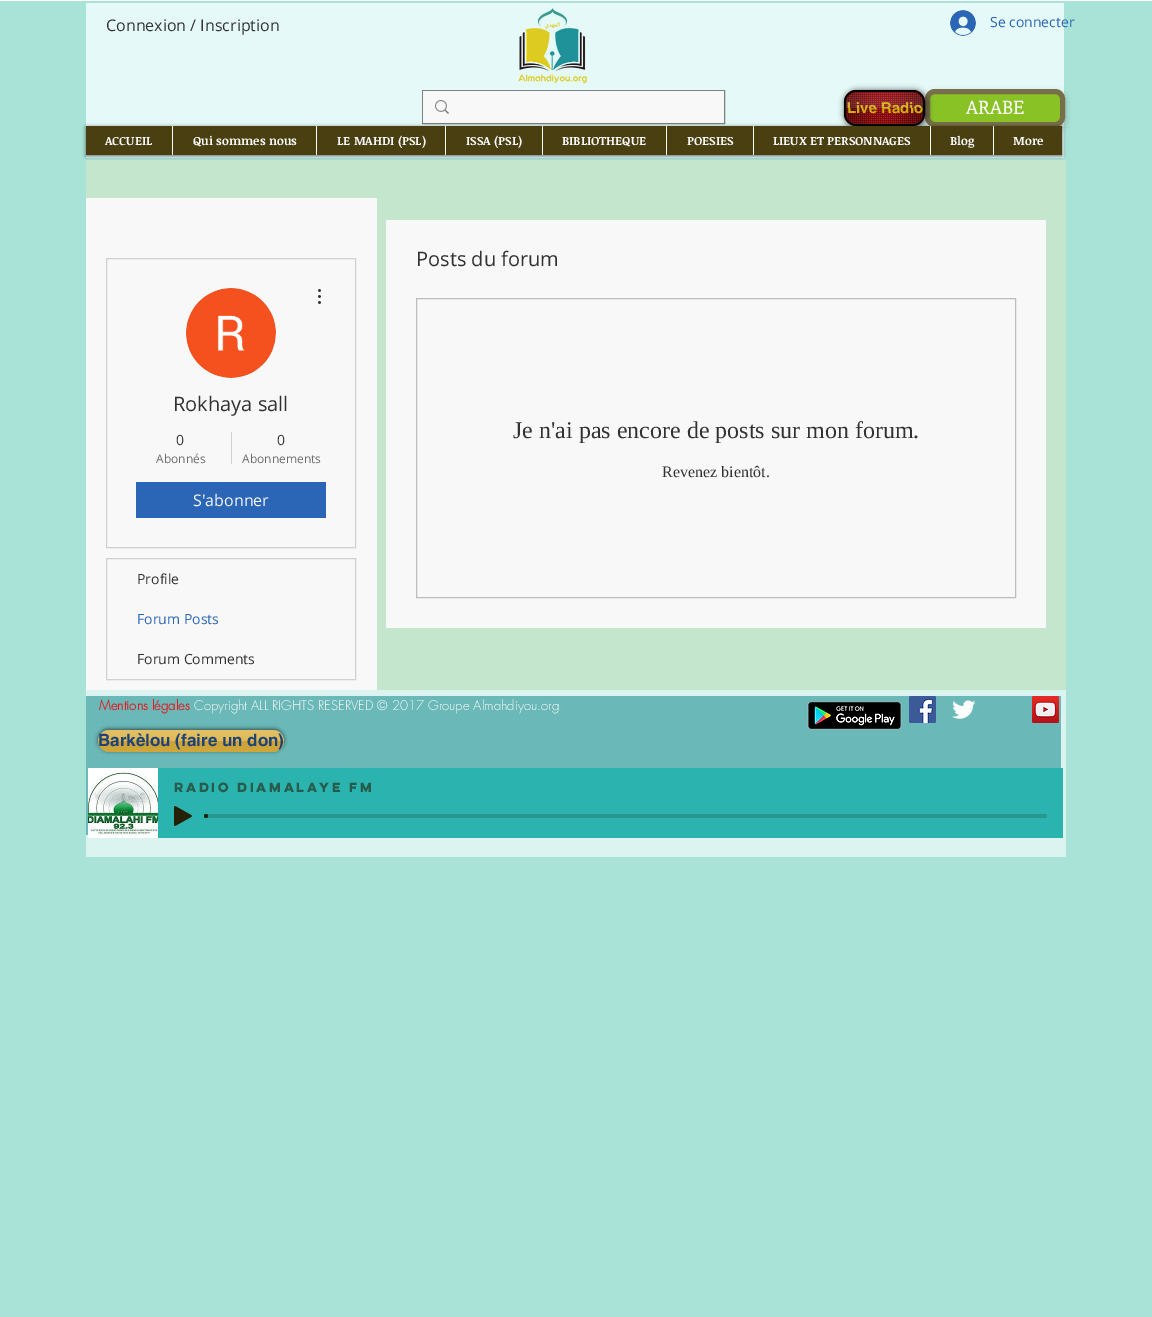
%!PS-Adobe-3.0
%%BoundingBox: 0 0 1152 1317
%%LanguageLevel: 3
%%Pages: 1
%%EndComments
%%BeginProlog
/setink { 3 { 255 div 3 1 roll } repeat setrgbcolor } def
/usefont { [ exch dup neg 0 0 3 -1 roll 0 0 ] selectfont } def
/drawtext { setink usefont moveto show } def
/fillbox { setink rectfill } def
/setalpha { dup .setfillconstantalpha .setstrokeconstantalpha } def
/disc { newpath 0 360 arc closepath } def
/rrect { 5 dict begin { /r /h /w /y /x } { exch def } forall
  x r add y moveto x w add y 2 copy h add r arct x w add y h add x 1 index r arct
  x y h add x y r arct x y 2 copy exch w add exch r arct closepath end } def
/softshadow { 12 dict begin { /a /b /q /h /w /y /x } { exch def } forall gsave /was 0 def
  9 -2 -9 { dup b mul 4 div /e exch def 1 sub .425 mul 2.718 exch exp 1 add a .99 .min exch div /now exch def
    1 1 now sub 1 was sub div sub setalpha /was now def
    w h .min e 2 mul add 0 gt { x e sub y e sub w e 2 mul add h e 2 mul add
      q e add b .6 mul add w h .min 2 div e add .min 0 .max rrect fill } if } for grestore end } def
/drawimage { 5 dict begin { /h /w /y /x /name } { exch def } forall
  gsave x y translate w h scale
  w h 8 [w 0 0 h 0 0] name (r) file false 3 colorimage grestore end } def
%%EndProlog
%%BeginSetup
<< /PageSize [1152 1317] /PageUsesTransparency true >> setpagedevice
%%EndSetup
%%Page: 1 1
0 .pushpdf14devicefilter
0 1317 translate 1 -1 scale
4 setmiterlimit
0 0 1152 1317 255 255 255 fillbox
0 1 1152 1316 169 227 215 fillbox
86 3 978 155 229 250 248 fillbox
(Connexion / Inscription) 106 31 /OpenSans-Regular 16 50 50 50 drawtext
(assets/img1.rgb) 518 8 69 76 drawimage
(assets/img2.rgb) 950 10 26 26 drawimage
(Se connecter) 990 27 /OpenSans-Regular 14 43 101 181 drawtext
122 130 129 setink
422.5 90.5 302 33 rectstroke
423 91 301 32 248 248 248 fillbox
(assets/img3.rgb) 435 100 14 14 drawimage
(assets/img8.rgb) 1062 127 8 1 drawimage
0 0 0 setink
926 92 140 38 10 3 0.2 softshadow
136 194 37 setink
927.5 91.5 135 33 7.5 rrect gsave fill grestore
119 111 72 setink
5 setlinewidth
stroke
255 255 255 setink
845 91 81 36 12 1.5 0.3 softshadow
0 0 0 setink
844 90 83 38 13 3 0.6 softshadow
226 28 33 setink
844 90 81 36 12 rrect fill
(assets/img4.rgb) 844 90 81 36 drawimage
0 0 0 setink
2 setlinewidth
845 91 79 34 11 rrect stroke
(assets/img5.rgb) 846 92 50 32 drawimage
(assets/img7.rgb) 875 92 48 32 drawimage
(Live Radio) 847 113 /helvetica-Bold 15 209 176 13 drawtext
(assets/img6.rgb) 846 92 77 16 drawimage
(ARABE) 966 114 /NoticiaText-Regular 20 255 255 255 drawtext
0 0 0 setink
86 127 976 29 0 2 0.6 softshadow
86 126 976 29 74 63 16 fillbox
(ACCUEIL) 105 145 /NoticiaText-Bold 12 248 248 248 drawtext
172 126 1 29 255 255 255 fillbox
(Qui sommes nous) 193 145 /NoticiaText-Bold 12 248 248 248 drawtext
316 126 1 29 255 255 255 fillbox
(LE MAHDI \(PSL\)) 337 145 /NoticiaText-Bold 12 248 248 248 drawtext
445 126 1 29 255 255 255 fillbox
(ISSA \(PSL\)) 466 145 /NoticiaText-Bold 12 248 248 248 drawtext
542 126 1 29 255 255 255 fillbox
(BIBLIOTHEQUE) 562 145 /NoticiaText-Bold 12 248 248 248 drawtext
666 126 1 29 255 255 255 fillbox
(POESIES) 687 145 /NoticiaText-Bold 12 248 248 248 drawtext
753 126 1 29 255 255 255 fillbox
(LIEUX ET PERSONNAGES) 773 145 /NoticiaText-Bold 12 248 248 248 drawtext
930 126 1 29 255 255 255 fillbox
(Blog) 950 145 /NoticiaText-Bold 12 248 248 248 drawtext
993 126 1 29 255 255 255 fillbox
(More) 1013 145 /NoticiaText-Bold 12 248 248 248 drawtext
86 160 980 530 196 230 204 fillbox
386 220 660 408 248 248 248 fillbox
(Posts du forum) 416 266 /OpenSans-Regular 20 50 50 50 drawtext
189 189 189 setink
1 setlinewidth
416.5 298.5 599 299 rectstroke
(Je n'ai pas encore de posts sur mon forum.) 513 438 /LiberationSerif-Regular 24 50 50 50 drawtext
(Revenez bientôt.) 662 477 /LiberationSerif-Regular 16 50 50 50 drawtext
86 198 291 492 248 248 248 fillbox
208 208 208 setink
106.5 258.5 249 289 rectstroke
216 216 216 setink
231 333 45 disc fill
(assets/img9.rgb) 186 288 90 90 drawimage
(assets/img10.rgb) 318 289 3 15 drawimage
(Rokhaya sall) 173 411 /OpenSans-Regular 20 50 50 50 drawtext
(0) 176 445 /OpenSans-Regular 14 50 50 50 drawtext
(Abonnés) 156 463 /OpenSans-Regular 12 109 109 109 drawtext
231 432 1 32 208 208 208 fillbox
(0) 277 445 /OpenSans-Regular 14 50 50 50 drawtext
(Abonnements) 242 463 /OpenSans-Regular 12 109 109 109 drawtext
136 482 190 36 43 101 181 fillbox
(S'abonner) 193 506 /OpenSans-Regular 16 248 248 248 drawtext
208 208 208 setink
106.5 558.5 249 121 rectstroke
(Profile) 137 584 /OpenSans-Regular 14 50 50 50 drawtext
(Forum Posts) 137 624 /OpenSans-Regular 14 43 101 181 drawtext
(Forum Comments) 137 664 /OpenSans-Regular 14 50 50 50 drawtext
86 690 980 167 220 244 239 fillbox
86 696 975 139 106 185 184 fillbox
(Mentions légales) 99 710 /futura-Bold 13 226 28 33 drawtext
(Copyright ALL RIGHTS RESERVED © 2017 Groupe Almahdiyou.org) 194 710 /futura-Light 13 248 248 248 drawtext
(assets/img11.rgb) 807 701 95 29 drawimage
(assets/img12.rgb) 909 696 27 27 drawimage
(assets/img13.rgb) 952 700 24 19 drawimage
(assets/img14.rgb) 1032 696 27 27 drawimage
0 0 0 setink
98 729 186 22 11 2 0.6 softshadow
219 175 61 setink
98 730 186 22 11 rrect fill
(assets/img15.rgb) 98 730 186 22 drawimage
(Barkèlou \(faire un don\)) 98 746 /helvetica-Bold 17 29 67 121 drawtext
158 768 905 70 43 179 176 fillbox
(assets/img16.rgb) 88 768 70 70 drawimage
(Radio DIAMALAYE FM) 174 792 /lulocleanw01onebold-Bold 12 39 91 75 drawtext
(assets/img17.rgb) 174 806 18 20 drawimage
42 150 142 setink
206 814 841 4 2 rrect fill
37 32 8 setink
206 816 2 disc fill
.poppdf14devicefilter showpage
%%EOF
